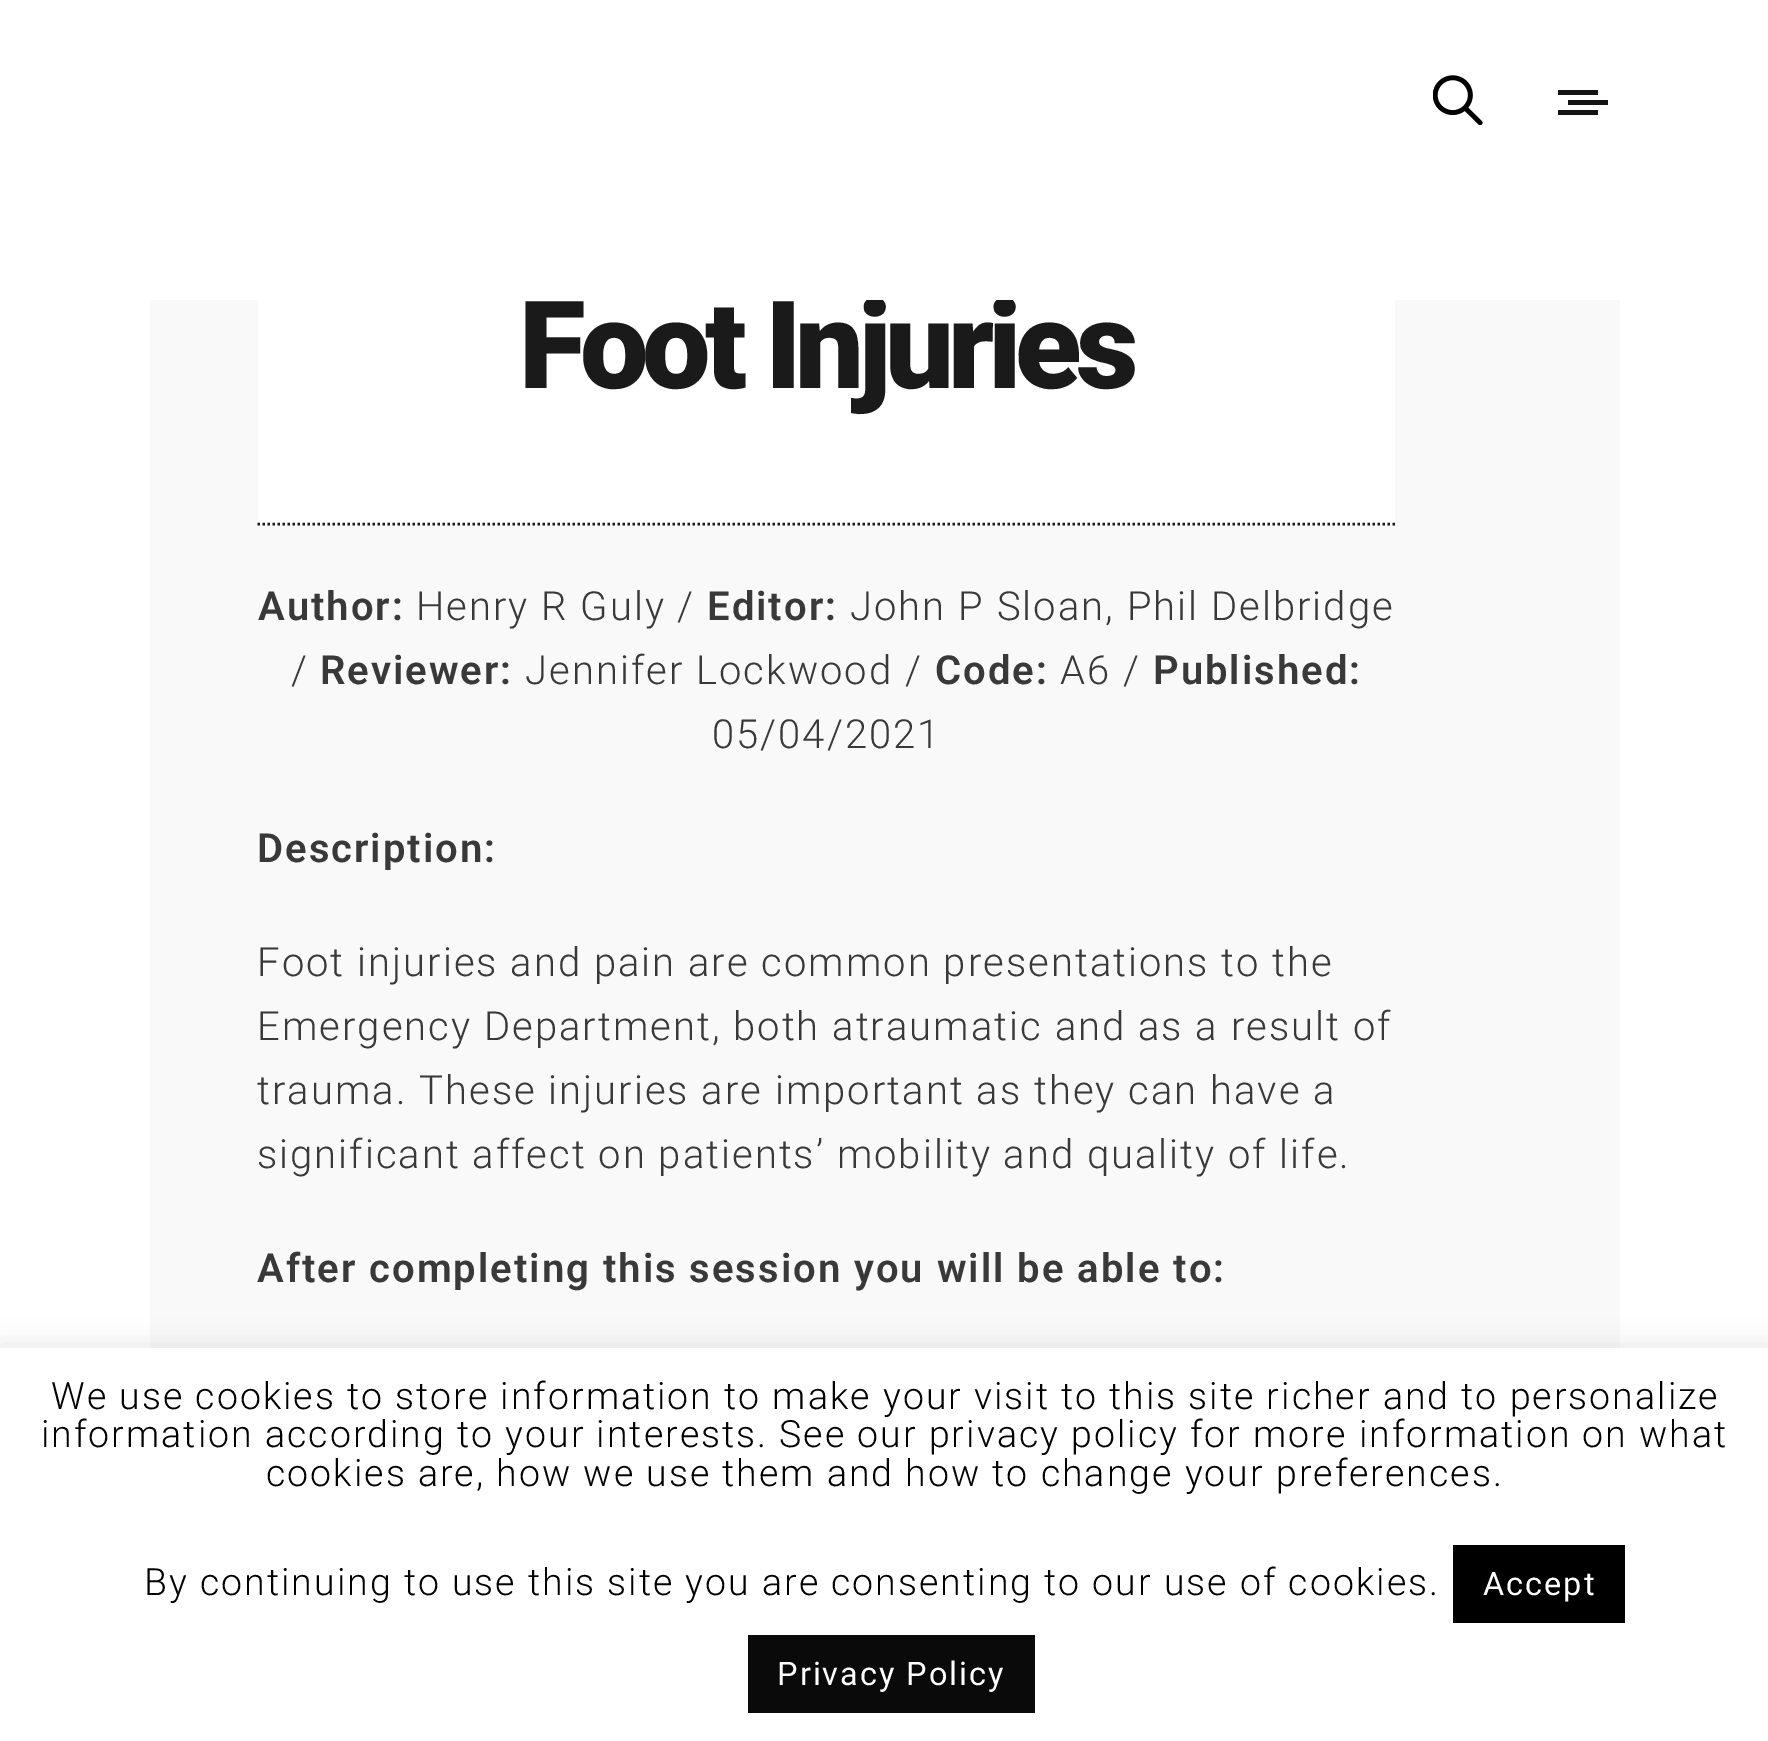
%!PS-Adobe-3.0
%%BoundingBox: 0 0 1768 1741
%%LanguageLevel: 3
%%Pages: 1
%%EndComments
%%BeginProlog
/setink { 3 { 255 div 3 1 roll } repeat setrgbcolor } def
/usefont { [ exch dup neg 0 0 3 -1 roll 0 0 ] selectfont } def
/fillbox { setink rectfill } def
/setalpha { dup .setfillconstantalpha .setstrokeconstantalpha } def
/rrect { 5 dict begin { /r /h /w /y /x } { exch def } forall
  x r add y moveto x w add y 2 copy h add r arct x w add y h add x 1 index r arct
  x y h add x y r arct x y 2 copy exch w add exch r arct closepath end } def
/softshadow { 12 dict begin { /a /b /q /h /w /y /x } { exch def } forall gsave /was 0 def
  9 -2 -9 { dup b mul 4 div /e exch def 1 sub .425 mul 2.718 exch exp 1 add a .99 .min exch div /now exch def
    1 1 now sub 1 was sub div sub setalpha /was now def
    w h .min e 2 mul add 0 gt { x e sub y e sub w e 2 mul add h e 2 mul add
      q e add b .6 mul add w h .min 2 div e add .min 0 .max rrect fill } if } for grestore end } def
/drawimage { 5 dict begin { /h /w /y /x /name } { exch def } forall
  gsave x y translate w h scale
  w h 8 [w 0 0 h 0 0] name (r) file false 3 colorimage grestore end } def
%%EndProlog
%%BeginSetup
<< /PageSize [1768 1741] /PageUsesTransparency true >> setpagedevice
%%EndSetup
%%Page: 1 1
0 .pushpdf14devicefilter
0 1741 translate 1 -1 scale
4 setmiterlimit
0 0 1768 1741 249 249 249 fillbox
258 300 1137 225 255 255 255 fillbox
/Roboto-Black 122 usefont
26 26 26 setink
519 388 moveto -6.1 0 (Foot Injuries) ashow
0 0 1768 300 255 255 255 fillbox
(assets/img1.rgb) 1433 75 50 50 drawimage
1558 90 40 5 21 21 21 fillbox
1568 100 40 5 21 21 21 fillbox
1558 110 40 5 21 21 21 fillbox
0 300 150 1048 255 255 255 fillbox
26 26 26 setink
2.5 setlinewidth
[2.5 2.5] 0 setdash
257.5 524 moveto 1395 524 lineto stroke
/Roboto-SemiBold 40 usefont
57 57 57 setink
258 620 moveto 2 0 (Author:) ashow
/Roboto-Light 40 usefont
416 620 moveto 2 0 (Henry R Guly /) ashow
/Roboto-SemiBold 40 usefont
707 620 moveto 2 0 (Editor:) ashow
/Roboto-Light 40 usefont
850 620 moveto 2 0 (John P Sloan, Phil Delbridge) ashow
291 684 moveto 2 0 (/) ashow
/Roboto-SemiBold 40 usefont
320 684 moveto 2 0 (Reviewer:) ashow
/Roboto-Light 40 usefont
525 684 moveto 2 0 (Jennifer Lockwood /) ashow
/Roboto-SemiBold 40 usefont
935 684 moveto 2 0 (Code:) ashow
/Roboto-Light 40 usefont
1060 684 moveto 2 0 (A6 /) ashow
/Roboto-SemiBold 40 usefont
1153 684 moveto 2 0 (Published:) ashow
/Roboto-Light 40 usefont
712 748 moveto 2 0 (05/04/2021) ashow
/Roboto-SemiBold 40 usefont
257 862 moveto 2 0 (Description:) ashow
/Roboto-Light 40 usefont
257 976 moveto 2 0 (Foot injuries and pain are common presentations to the) ashow
257 1040 moveto 2 0 (Emergency Department, both atraumatic and as a result of) ashow
257 1104 moveto 2 0 (trauma. These injuries are important as they can have a) ashow
257 1168 moveto 2 0 (significant affect on patients’ mobility and quality of life.) ashow
/Roboto-SemiBold 40 usefont
257 1282 moveto 2 0 (After completing this session you will be able to:) ashow
1620 300 148 1048 255 255 255 fillbox
172 171 171 setink
0 1345 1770 395 0 12.5 0.3 softshadow
0 1348 1768 393 255 255 255 fillbox
/Roboto-Light 37.5 usefont
0 0 0 setink
51 1409 moveto 2 0 (We use cookies to store information to make your visit to this site richer and to personalize) ashow
41 1447 moveto 2 0 (information according to your interests. See our privacy policy for more information on what) ashow
266 1486 moveto 2 0 (cookies are, how we use them and how to change your preferences.) ashow
144 1595 moveto 2 0 (By continuing to use this site you are consenting to our use of cookies.) ashow
1453 1545 172 78 0 0 0 fillbox
/Roboto-Regular 32.5 usefont
255 255 255 setink
1483 1595 moveto 2 0 (Accept) ashow
748 1635 287 78 10 10 10 fillbox
255 255 255 setink
777 1685 moveto 2 0 (Privacy Policy) ashow
.poppdf14devicefilter showpage
%%EOF
